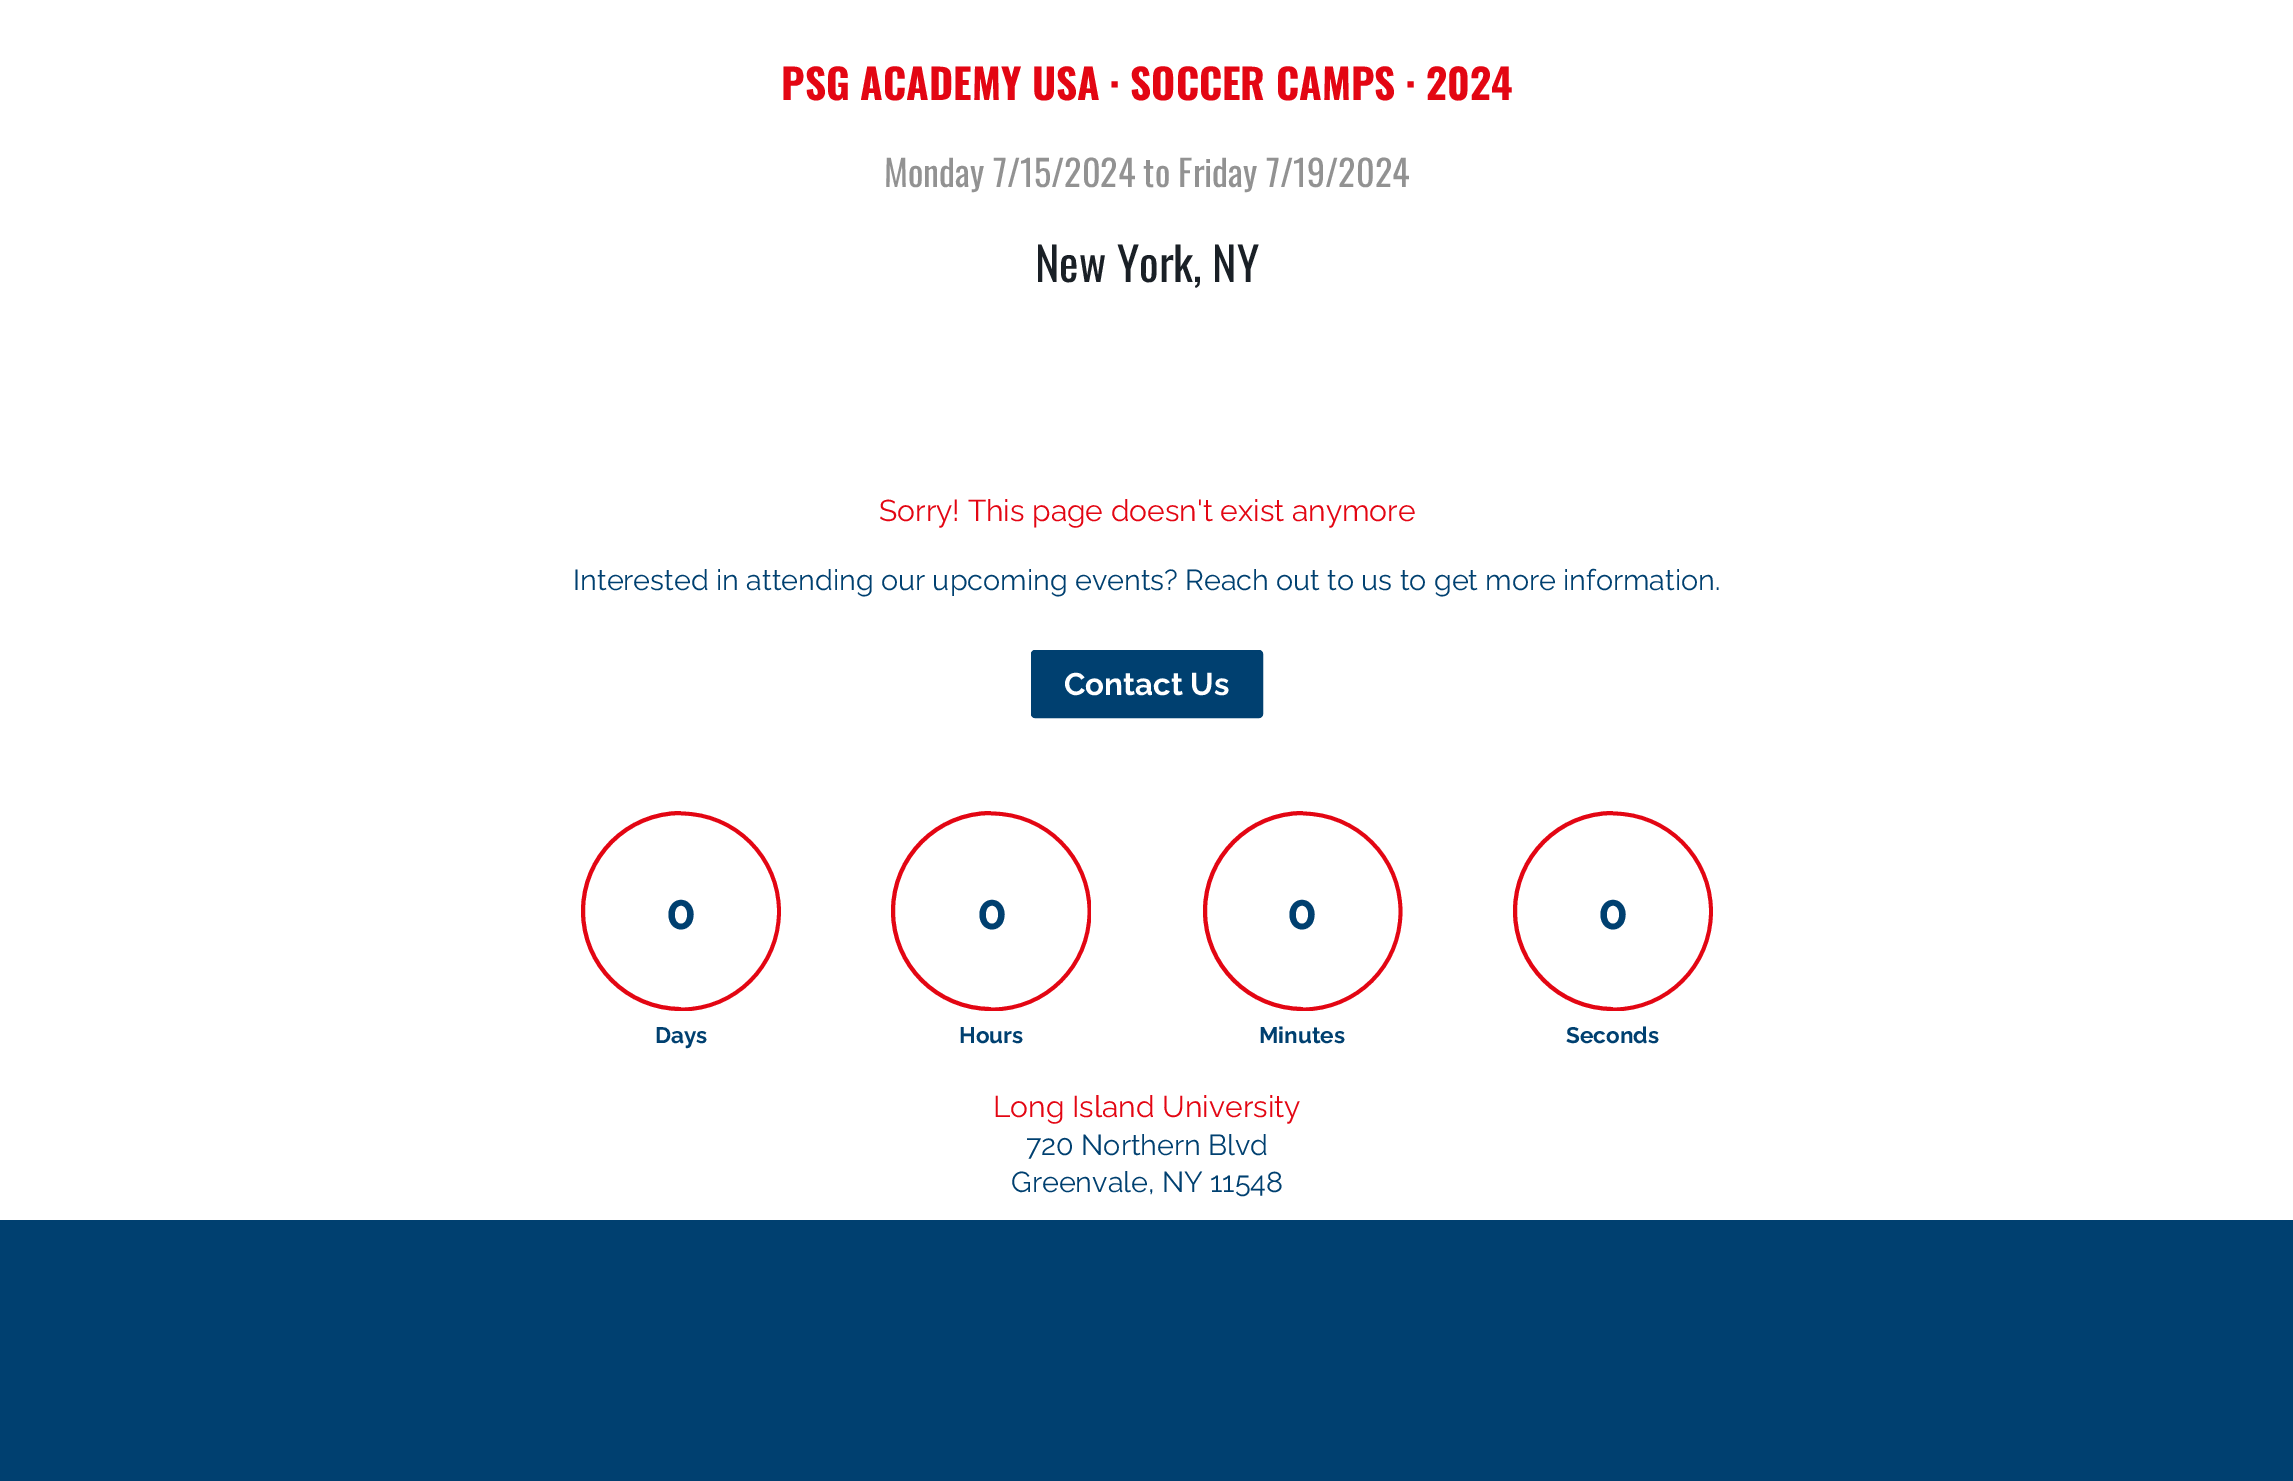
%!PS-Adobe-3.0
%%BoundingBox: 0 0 2293 1481
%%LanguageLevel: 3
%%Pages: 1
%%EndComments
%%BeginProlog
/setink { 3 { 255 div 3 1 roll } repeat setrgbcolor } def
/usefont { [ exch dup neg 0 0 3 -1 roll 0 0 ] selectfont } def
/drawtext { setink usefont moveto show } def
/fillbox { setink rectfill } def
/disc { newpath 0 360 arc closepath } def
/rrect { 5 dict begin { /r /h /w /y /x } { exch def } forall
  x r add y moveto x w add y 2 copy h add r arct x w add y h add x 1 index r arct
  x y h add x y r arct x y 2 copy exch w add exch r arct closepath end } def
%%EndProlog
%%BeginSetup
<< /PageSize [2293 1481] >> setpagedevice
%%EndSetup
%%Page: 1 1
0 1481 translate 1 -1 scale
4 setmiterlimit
0 0 2293 1481 0 64 112 fillbox
0 0 2293 1220 255 255 255 fillbox
(PSG ACADEMY USA · SOCCER CAMPS · 2024) 781 100 /Oswald-Bold 41.25 227 6 19 drawtext
(Monday 7/15/2024 to Friday 7/19/2024) 884 187 /Oswald-Regular 36.25 146 146 146 drawtext
(New York, NY) 1035 282 /Oswald-Regular 46.25 26 32 38 drawtext
(Sorry! This page doesn't exist anymore) 879 521 /Raleway-Regular 30 227 6 19 drawtext
(Interested in attending our upcoming events? Reach out to us to get more information.) 573 590 /Raleway-Regular 28.75 0 64 112 drawtext
1031.5 650.5 231 67 3.5 rrect gsave fill grestore
stroke
(Contact Us) 1064 695 /Raleway-Bold 31.25 255 255 255 drawtext
gsave
581 811 100 200 rectclip
227 6 19 setink
4 setlinewidth
681 911 98 disc stroke
grestore
gsave
681 811 100 200 rectclip
227 6 19 setink
3.8 setlinewidth
681 1009.5 moveto 626.5 1009.5 583 966 583 911.5 curveto 583 857.5 626.5 813.5 681 813.5 curveto 735 813.5 779 857.5 779 911.5 curveto 779 966 735 1009.5 681 1009.5 curveto closepath stroke
grestore
(0) 666 929 /Raleway-Bold 49 0 64 112 drawtext
(Days) 655 1043 /Raleway-Bold 22.5 0 64 112 drawtext
gsave
891 811 100 200 rectclip
227 6 19 setink
4 setlinewidth
991 911 98 disc stroke
grestore
gsave
991 811 100 200 rectclip
227 6 19 setink
3.8 setlinewidth
991.5 1009.5 moveto 937.5 1009.5 893.5 966 893.5 911.5 curveto 893.5 857.5 937.5 813.5 991.5 813.5 curveto 1046 813.5 1089.5 857.5 1089.5 911.5 curveto 1089.5 966 1046 1009.5 991.5 1009.5 curveto closepath stroke
grestore
(0) 977 929 /Raleway-Bold 49 0 64 112 drawtext
(Hours) 959 1043 /Raleway-Bold 22.5 0 64 112 drawtext
gsave
1203 811 100 200 rectclip
227 6 19 setink
4 setlinewidth
1303 911 98 disc stroke
grestore
gsave
1303 811 100 200 rectclip
227 6 19 setink
3.8 setlinewidth
1302 1009.5 moveto 1248 1009.5 1204 966 1204 911.5 curveto 1204 857.5 1248 813.5 1302 813.5 curveto 1356.5 813.5 1400.5 857.5 1400.5 911.5 curveto 1400.5 966 1356.5 1009.5 1302 1009.5 curveto closepath stroke
grestore
(0) 1287 929 /Raleway-Bold 49 0 64 112 drawtext
(Minutes) 1259 1043 /Raleway-Bold 22.5 0 64 112 drawtext
gsave
1513 811 100 200 rectclip
227 6 19 setink
4 setlinewidth
1613 911 98 disc stroke
grestore
gsave
1613 811 100 200 rectclip
227 6 19 setink
3.8 setlinewidth
1613 1009.5 moveto 1558.5 1009.5 1514.5 966 1514.5 911.5 curveto 1514.5 857.5 1558.5 813.5 1613 813.5 curveto 1667 813.5 1711 857.5 1711 911.5 curveto 1711 966 1667 1009.5 1613 1009.5 curveto closepath stroke
grestore
(0) 1598 929 /Raleway-Bold 49 0 64 112 drawtext
(Seconds) 1566 1043 /Raleway-Bold 22.5 0 64 112 drawtext
(Long Island University) 993 1117 /Raleway-Regular 30 227 6 19 drawtext
(720 Northern Blvd) 1026 1155 /Raleway-Regular 28.75 0 64 112 drawtext
(Greenvale, NY 11548) 1011 1192 /Raleway-Regular 28.75 0 64 112 drawtext
showpage
%%EOF
